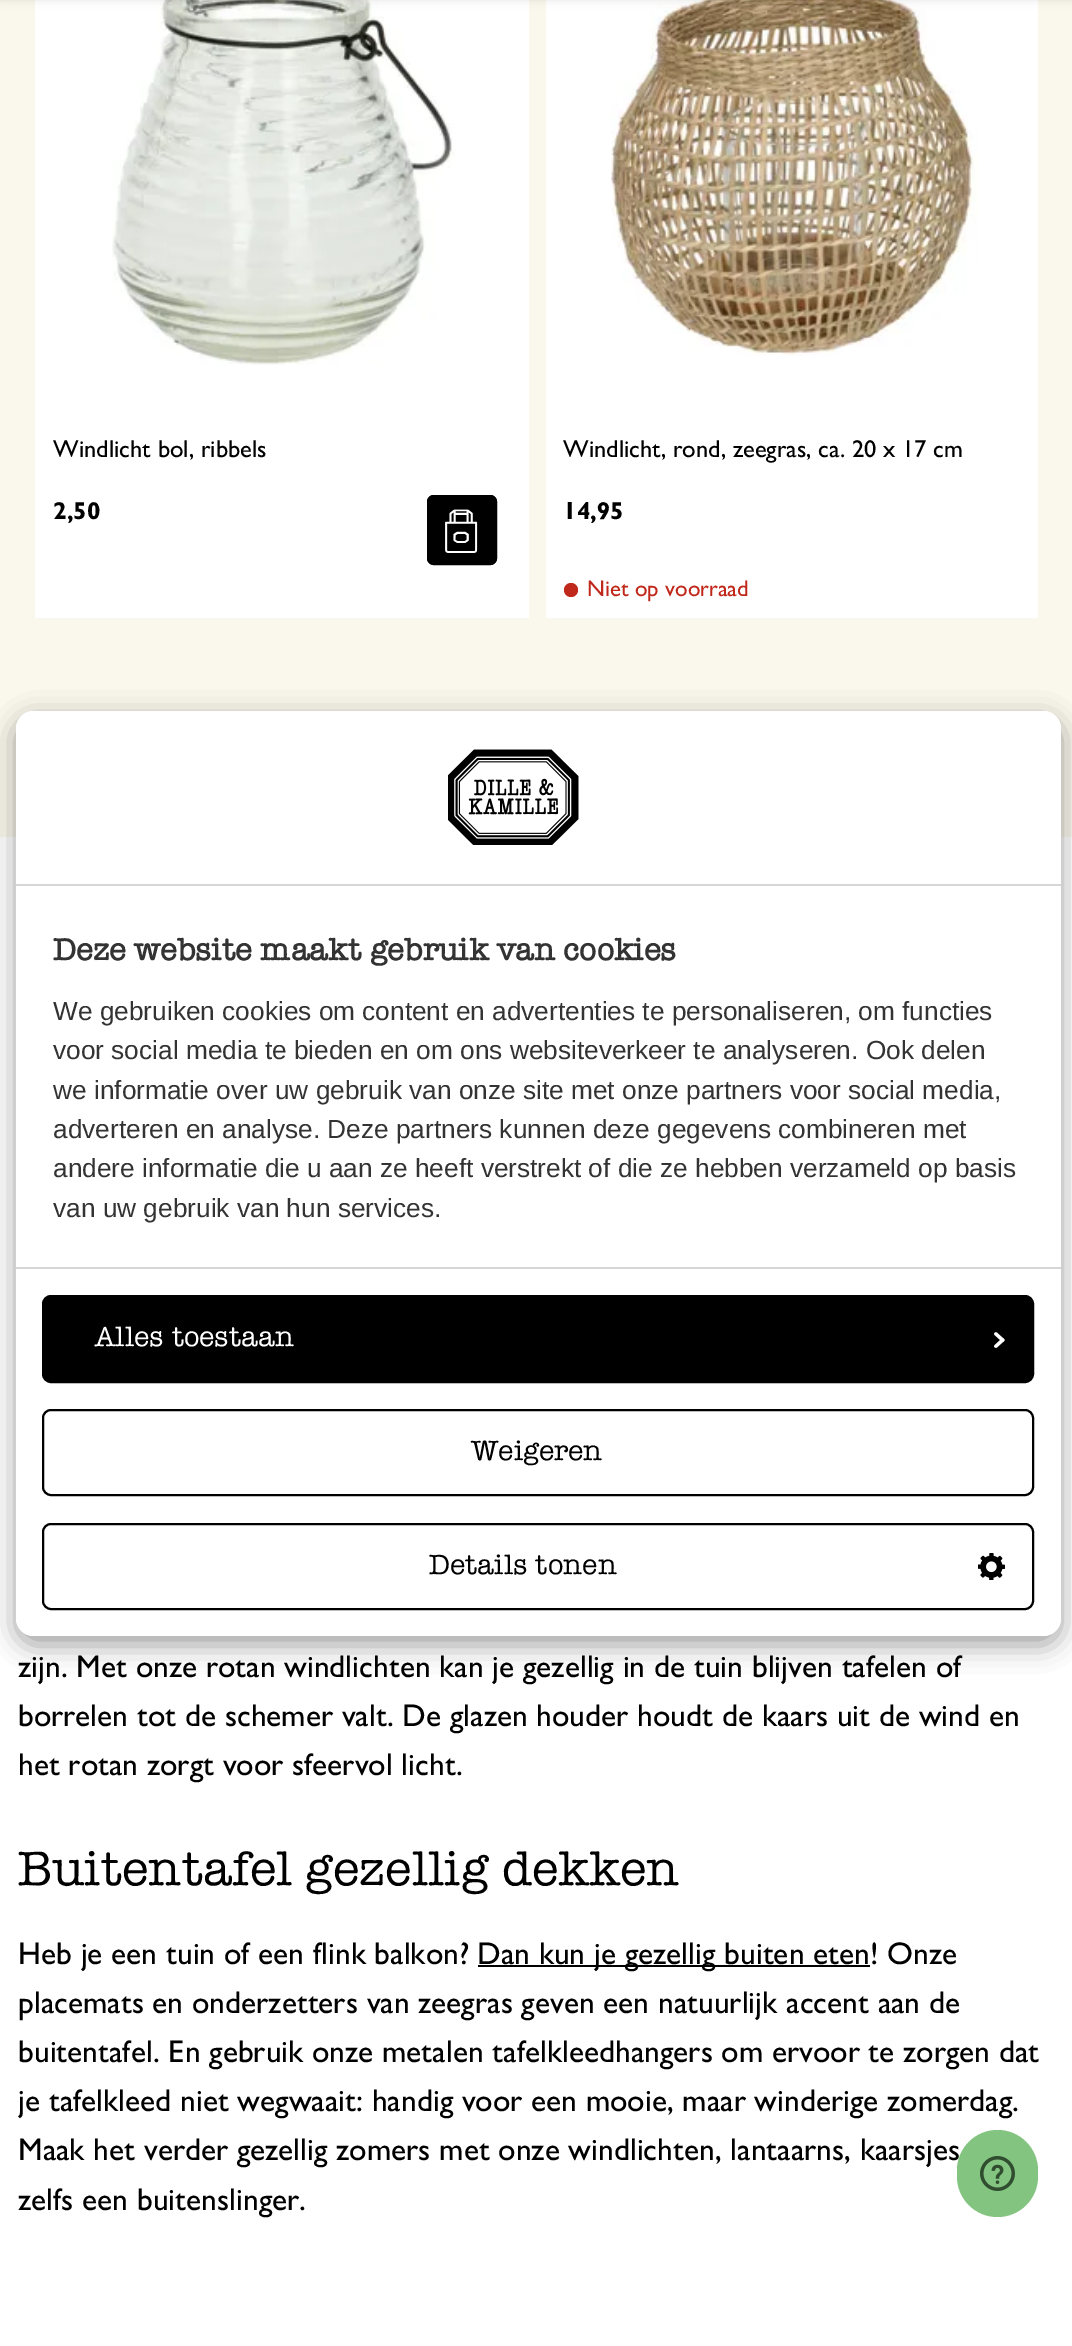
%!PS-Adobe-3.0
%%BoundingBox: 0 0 1072 2346
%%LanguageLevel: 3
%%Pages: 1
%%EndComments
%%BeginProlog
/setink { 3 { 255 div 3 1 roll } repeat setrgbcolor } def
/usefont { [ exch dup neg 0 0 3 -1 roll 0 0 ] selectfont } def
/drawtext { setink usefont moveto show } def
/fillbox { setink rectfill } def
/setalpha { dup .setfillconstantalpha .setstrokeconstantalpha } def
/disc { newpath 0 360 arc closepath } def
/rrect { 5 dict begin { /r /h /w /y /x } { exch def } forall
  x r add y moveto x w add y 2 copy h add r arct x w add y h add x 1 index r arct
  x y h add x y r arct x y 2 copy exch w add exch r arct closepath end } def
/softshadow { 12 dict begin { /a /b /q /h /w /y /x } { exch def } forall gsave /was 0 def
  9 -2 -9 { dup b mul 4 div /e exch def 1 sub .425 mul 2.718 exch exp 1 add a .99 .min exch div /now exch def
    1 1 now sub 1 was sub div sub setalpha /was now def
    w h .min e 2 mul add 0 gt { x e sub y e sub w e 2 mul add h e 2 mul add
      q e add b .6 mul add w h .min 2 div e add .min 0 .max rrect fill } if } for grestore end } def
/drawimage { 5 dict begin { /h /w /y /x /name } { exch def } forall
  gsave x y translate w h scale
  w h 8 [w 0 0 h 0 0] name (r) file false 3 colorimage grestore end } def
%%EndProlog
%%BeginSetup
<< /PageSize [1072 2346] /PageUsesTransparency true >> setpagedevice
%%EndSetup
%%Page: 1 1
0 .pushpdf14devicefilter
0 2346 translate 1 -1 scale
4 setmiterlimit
0 0 1072 2346 250 248 237 fillbox
35 0 494 618 255 255 255 fillbox
(assets/img1.rgb) 112 0 343 365 drawimage
546 0 492 618 255 255 255 fillbox
(assets/img3.rgb) 611 0 367 356 drawimage
0 0 0 setink
0 -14 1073 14 0 4.5 0.1 softshadow
(Windlicht bol, ribbels) 53 457 /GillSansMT-Medium 24.5 0 0 0 drawtext
(2,50) 53 519 /GillSansMT-Bold 24.5 0 0 0 drawtext
427 495 70 70 7 rrect fill
(assets/img2.rgb) 445 509 33 44 drawimage
2 setlinewidth
428 496 68 68 6 rrect stroke
(Windlicht, rond, zeegras, ca. 20 x 17 cm) 563 457 /GillSansMT-Medium 24.5 0 0 0 drawtext
(14,95) 563 519 /GillSansMT-Bold 24.5 0 0 0 drawtext
192 40 27 setink
571 590 7 disc fill
(Niet op voorraad) 587 596 /GillSansMT-Medium 22.75 192 40 27 drawtext
0 837 1072 1509 255 255 255 fillbox
(zijn. Met onze rotan windlichten kan je gezellig in de tuin blijven tafelen of) 18 1677 /GillSansMT-Medium 31.5 0 0 0 drawtext
(borrelen tot de schemer valt. De glazen houder houdt de kaars uit de wind en) 18 1726 /GillSansMT-Medium 31.5 0 0 0 drawtext
(het rotan zorgt voor sfeervol licht.) 18 1775 /GillSansMT-Medium 31.5 0 0 0 drawtext
(Buitentafel gezellig dekken) 18 1885 /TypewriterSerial-Regular 45.5 0 0 0 drawtext
(Heb je een tuin of een flink balkon?) 18 1964 /GillSansMT-Medium 31.5 0 0 0 drawtext
478 1965 392 2 0 0 0 fillbox
(Dan kun je gezellig buiten eten! Onze) 477 1964 /GillSansMT-Medium 31.5 0 0 0 drawtext
(placemats en onderzetters van zeegras geven een natuurlijk accent aan de) 18 2013 /GillSansMT-Medium 31.5 0 0 0 drawtext
(buitentafel. En gebruik onze metalen tafelkleedhangers om ervoor te zorgen dat) 18 2062 /GillSansMT-Medium 31.5 0 0 0 drawtext
(je tafelkleed niet wegwaait: handig voor een mooie, maar winderige zomerdag.) 18 2111 /GillSansMT-Medium 31.5 0 0 0 drawtext
(Maak het verder gezellig zomers met onze windlichten, lantaarns, kaarsjes) 18 2160 /GillSansMT-Medium 31.5 0 0 0 drawtext
(zelfs een buitenslinger.) 18 2210 /GillSansMT-Medium 31.5 0 0 0 drawtext
16 719 1045 926 18 13 0.19 softshadow
16 719 1045 926 18 13 0.2 softshadow
255 255 255 setink
16 711 1045 925 18 rrect fill
34 711 moveto 1043 711 lineto 1053 711 1061 719 1061 729 curveto 1061 886 lineto 16 886 lineto 16 729 lineto 16 719 24 711 34 711 curveto closepath fill
16 884 1045 2 214 214 214 fillbox
(assets/img4.rgb) 448 749 131 96 drawimage
(Deze website maakt gebruik van cookies) 53 960 /TypewriterSerial-Bold 28.9 51 51 51 drawtext
(We gebruiken cookies om content en advertenties te personaliseren, om functies) 53 1020 /LiberationSans-Regular 26.25 51 51 51 drawtext
(voor social media te bieden en om ons websiteverkeer te analyseren. Ook delen) 53 1059 /LiberationSans-Regular 26.25 51 51 51 drawtext
(we informatie over uw gebruik van onze site met onze partners voor social media,) 53 1099 /LiberationSans-Regular 26.25 51 51 51 drawtext
(adverteren en analyse. Deze partners kunnen deze gegevens combineren met) 53 1138 /LiberationSans-Regular 26.25 51 51 51 drawtext
(andere informatie die u aan ze heeft verstrekt of die ze hebben verzameld op basis) 53 1177 /LiberationSans-Regular 26.25 51 51 51 drawtext
(van uw gebruik van hun services.) 53 1217 /LiberationSans-Regular 26.25 51 51 51 drawtext
255 255 255 setink
16 1267 moveto 1061 1267 lineto 1061 1618 lineto 1061 1628 1053 1636 1043 1636 curveto 34 1636 lineto 24 1636 16 1628 16 1618 curveto closepath fill
16 1267 1045 2 214 214 214 fillbox
0 0 0 setink
43 1296 990 86 8 rrect gsave fill grestore
stroke
(Alles toestaan) 95 1346 /TypewriterSerial-Regular 26.25 255 255 255 drawtext
(assets/img5.rgb) 994 1332 11 16 drawimage
0 0 0 setink
43 1410 990 85 8 rrect stroke
(Weigeren) 471 1460 /TypewriterSerial-Regular 26.25 0 0 0 drawtext
43 1524 990 85 8 rrect stroke
(Details tonen) 429 1574 /TypewriterSerial-Regular 26.25 0 0 0 drawtext
(assets/img6.rgb) 978 1553 27 27 drawimage
131 196 129 setink
957 2130 81 87 40.5 rrect fill
(assets/img7.rgb) 980 2156 35 35 drawimage
.poppdf14devicefilter showpage
%%EOF
